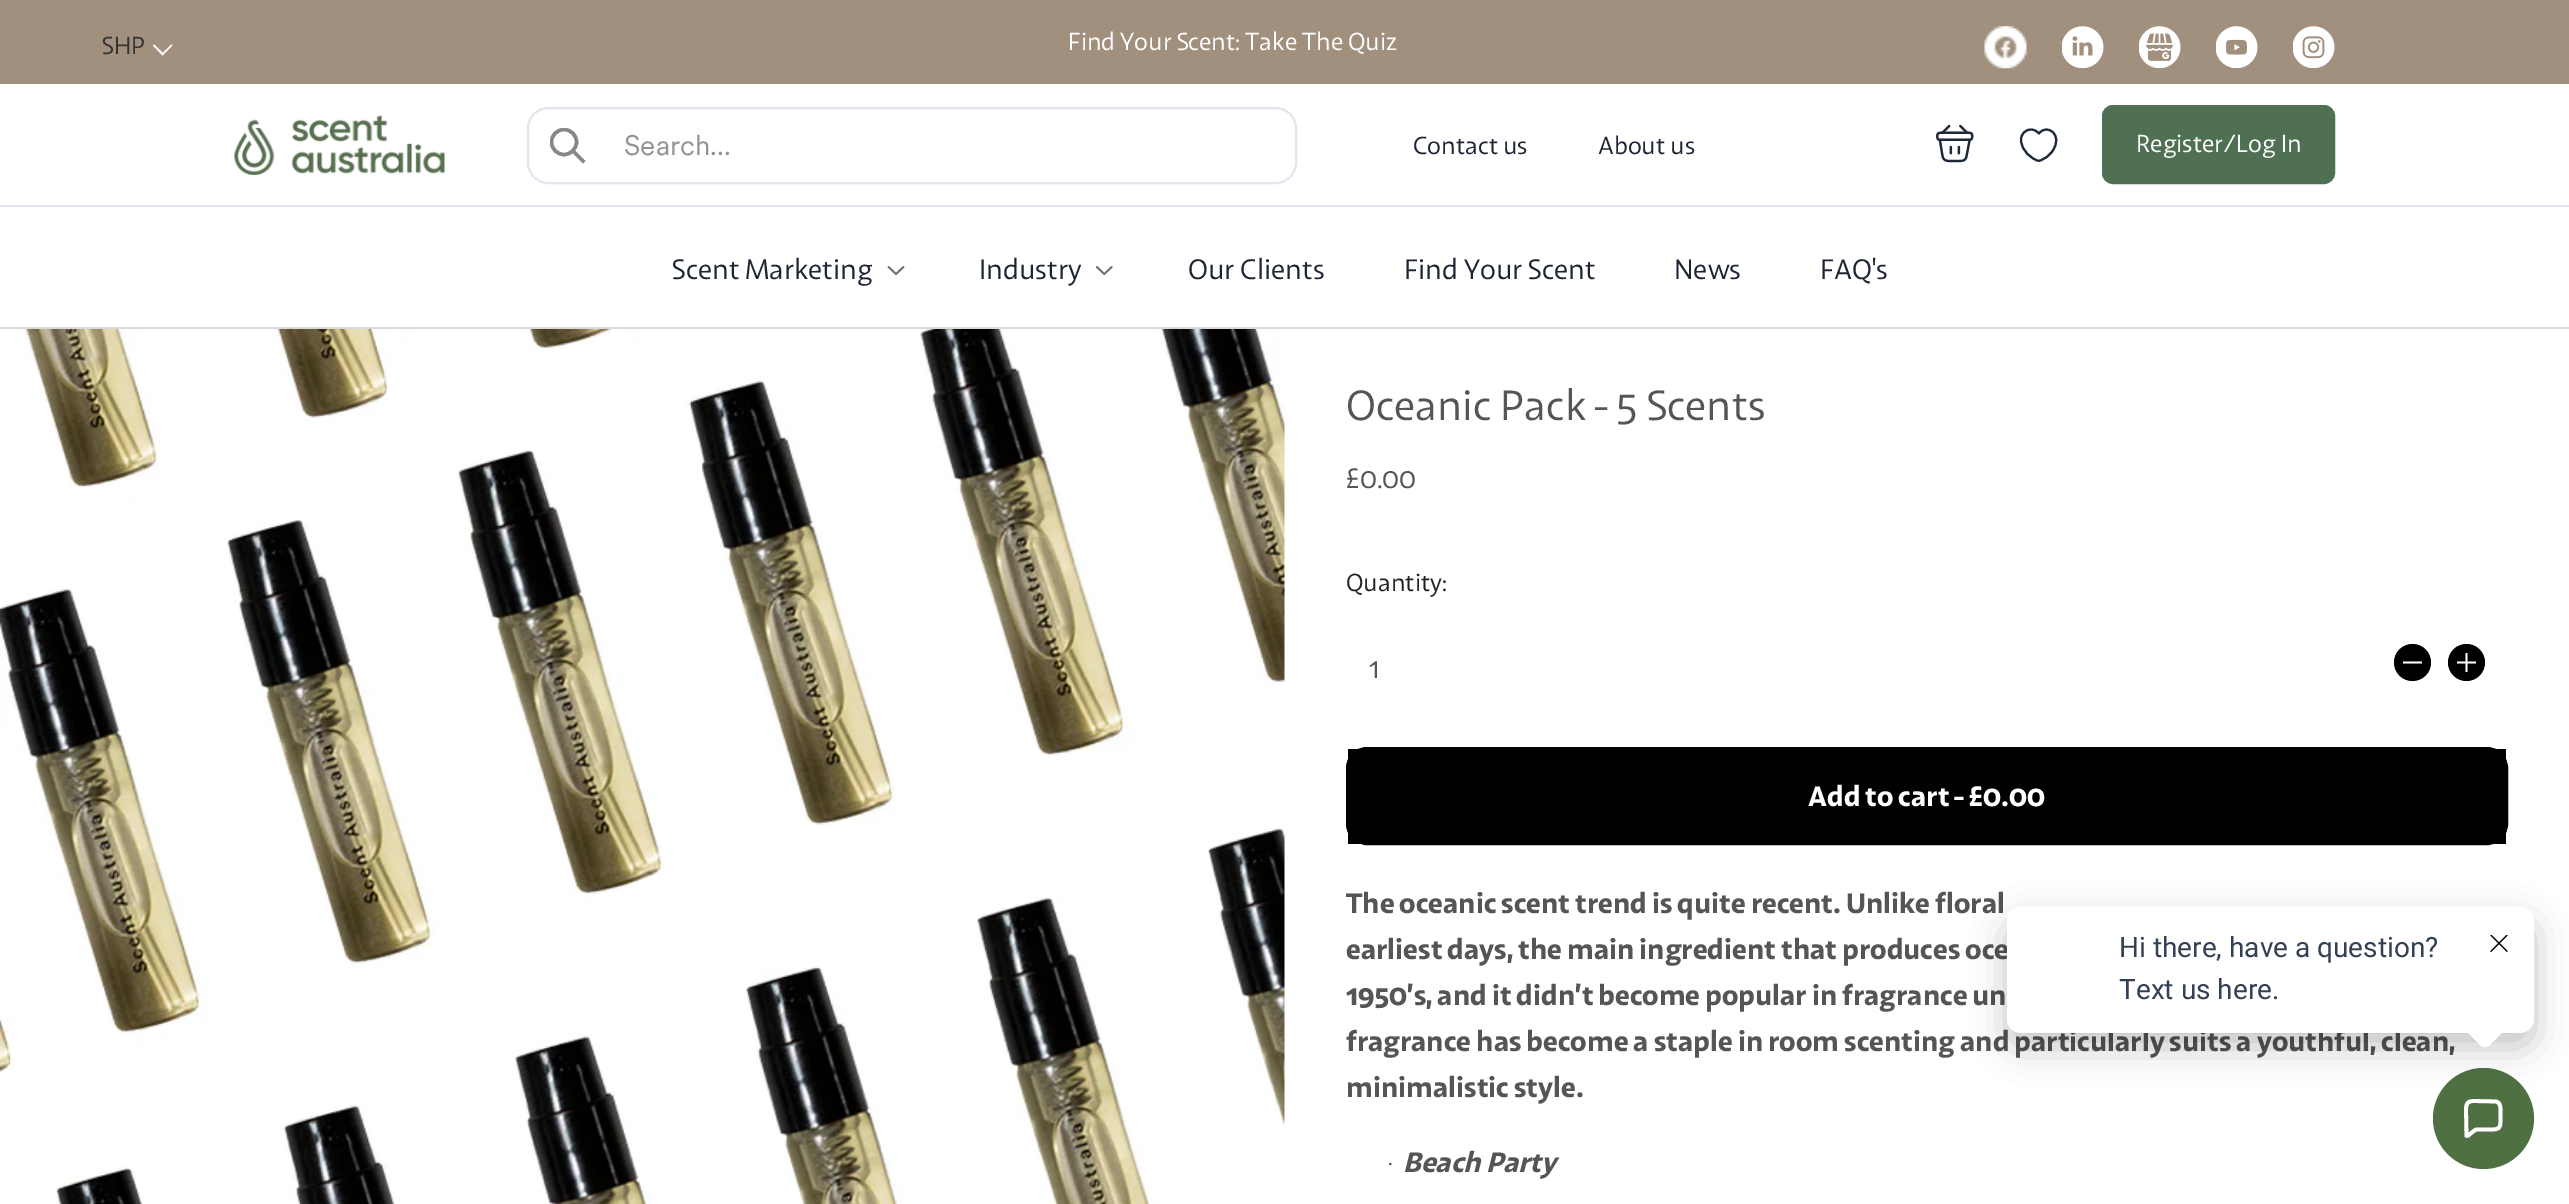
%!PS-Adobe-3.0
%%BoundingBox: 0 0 2569 1204
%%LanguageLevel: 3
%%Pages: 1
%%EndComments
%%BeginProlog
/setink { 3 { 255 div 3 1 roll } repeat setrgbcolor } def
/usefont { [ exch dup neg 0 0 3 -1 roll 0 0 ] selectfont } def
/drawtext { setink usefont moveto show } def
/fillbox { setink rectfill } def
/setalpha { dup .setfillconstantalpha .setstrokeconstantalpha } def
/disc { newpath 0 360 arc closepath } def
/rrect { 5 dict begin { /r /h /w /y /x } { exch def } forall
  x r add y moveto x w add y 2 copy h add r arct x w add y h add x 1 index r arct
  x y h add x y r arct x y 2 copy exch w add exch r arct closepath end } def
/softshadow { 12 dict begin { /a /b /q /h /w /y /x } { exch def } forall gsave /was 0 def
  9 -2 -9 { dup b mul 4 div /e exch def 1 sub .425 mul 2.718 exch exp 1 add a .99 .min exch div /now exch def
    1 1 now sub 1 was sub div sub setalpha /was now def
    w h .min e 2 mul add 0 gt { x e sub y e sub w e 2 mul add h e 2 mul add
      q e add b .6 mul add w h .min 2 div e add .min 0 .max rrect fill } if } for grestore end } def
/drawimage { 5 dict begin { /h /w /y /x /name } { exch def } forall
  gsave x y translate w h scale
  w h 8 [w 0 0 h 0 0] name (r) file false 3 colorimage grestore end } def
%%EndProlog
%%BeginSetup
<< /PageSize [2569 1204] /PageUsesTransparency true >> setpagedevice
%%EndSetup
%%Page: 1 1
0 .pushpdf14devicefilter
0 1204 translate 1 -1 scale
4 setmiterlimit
0 0 2569 1204 255 255 255 fillbox
0 0 2569 84 160 144 125 fillbox
(SHP) 102 54 /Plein-Regular 24.5 51 51 51 drawtext
255 255 255 setink
171.5 44.5 moveto 172.5 45.5 lineto 162.5 55.5 lineto 161.5 54 lineto closepath fill
154 44.5 moveto 164 54 lineto 162.5 55.5 lineto 153 45.5 lineto closepath fill
(Find Your Scent: Take The Quiz) 1068 50 /Plein-Regular 24.5 255 255 255 drawtext
(assets/img1.rgb) 1984 26 43 43 drawimage
(assets/img2.rgb) 2062 26 42 42 drawimage
(assets/img3.rgb) 2139 26 42 42 drawimage
(assets/img4.rgb) 2216 26 42 42 drawimage
(assets/img5.rgb) 2293 26 42 42 drawimage
0 327 2569 2 217 217 217 fillbox
(assets/img6.rgb) 234 115 211 60 drawimage
225 230 239 setink
2 setlinewidth
528 108 768 75 20 rrect stroke
135 135 135 setink
3.5 setlinewidth
2 setlinecap
583 161 moveto 573 151 lineto stroke
gsave
550 128 36 37 rectclip
0 setlinecap
564 142 12.5 disc stroke
grestore
(Search...) 624 155 /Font-Regular 28 147 147 147 drawtext
(Contact us) 1413 154 /Plein-Regular 24.5 29 36 51 drawtext
(About us) 1598 154 /Plein-Regular 24.5 29 36 51 drawtext
(assets/img7.rgb) 1936 124 38 39 drawimage
29 41 57 setink
2.1 setlinewidth
1 setlinecap
1 setlinejoin
2040 160.5 moveto 2039 161 2038.5 161 2037.5 160.5 curveto 2032.5 159 2021 151.5 2021 139.5 curveto 2021 134 2025.5 129.5 2031 129.5 curveto 2034 129.5 2037 131 2039 133.5 curveto 2046.5 123 2064 134.5 2052.5 151 curveto 2049.5 155.5 2045 159 2040 160.5 curveto closepath stroke
79 112 82 setink
2103 106 231 77 10 rrect gsave fill grestore
2 setlinewidth
0 setlinecap
0 setlinejoin
stroke
(Register/Log In) 2136 152 /Plein-Regular 24.5 255 255 255 drawtext
0 205 2569 2 225 230 239 fillbox
(Scent Marketing) 672 279 /Plein-Regular 28 29 36 51 drawtext
(assets/img8.rgb) 887 266 18 9 drawimage
(Industry) 979 279 /Plein-Regular 28 29 36 51 drawtext
(assets/img9.rgb) 1095 266 18 10 drawimage
(Our Clients) 1188 279 /Plein-Regular 28 29 36 51 drawtext
(Find Your Scent) 1404 279 /Plein-Regular 28 29 36 51 drawtext
(News) 1674 279 /Plein-Regular 28 29 36 51 drawtext
(FAQ's) 1820 279 /Plein-Regular 28 29 36 51 drawtext
(assets/img10.rgb) 0 329 1285 875 drawimage
(Oceanic Pack - 5 Scents) 1346 420 /Plein-Regular 42 85 85 85 drawtext
(£0.00) 1346 488 /Plein-Regular 28 85 85 85 drawtext
(Quantity:) 1346 591 /Plein-Regular 24.5 34 34 34 drawtext
(1) 1369 678 /Plein-Regular 28 85 85 85 drawtext
0 0 0 setink
2412.5 662.5 18.5 disc fill
255 255 255 setink
1.8 setlinewidth
2 setlinecap
2404 662.5 moveto 2421 662.5 lineto stroke
0 0 0 setink
2466.5 662.5 18.5 disc fill
255 255 255 setink
2466.5 654 moveto 2466.5 671 lineto 2458 662.5 moveto 2475 662.5 lineto stroke
1348 749 1158 95 0 0 0 fillbox
1347 748 1160 96 20 rrect gsave fill grestore
2 setlinewidth
0 setlinecap
stroke
(Add to cart - £0.00) 1808 806 /Plein-Bold 28 255 255 255 drawtext
(The oceanic scent trend is quite recent. Unlike floral) 1346 913 /Plein-Bold 28 85 85 85 drawtext
(earliest days, the main ingredient that produces oce) 1346 959 /Plein-Bold 28 85 85 85 drawtext
(1950’s, and it didn’t become popular in fragrance un) 1346 1005 /Plein-Bold 28 85 85 85 drawtext
(fragrance has become a staple in room scenting and particularly suits a youthful, clean,) 1346 1051 /Plein-Bold 28 85 85 85 drawtext
(minimalistic style.) 1346 1097 /Plein-Bold 28 85 85 85 drawtext
(·) 1388 1172 /Plein-Regular 23 85 85 85 drawtext
(Beach Party) 1403 1172 /Plein-BoldItalic 28 85 85 85 drawtext
79 112 66 setink
2483.5 1118.5 50.5 disc fill
255 255 255 setink
3.8 setlinewidth
1 setlinecap
1 setlinejoin
2466 1110.5 moveto 2466 1103.5 2467 1101 2474 1101 curveto 2496 1101.5 lineto 2501 1102.5 2500.5 1108.5 2500.5 1112 curveto 2500.5 1120.5 lineto 2500.5 1128.5 2499 1129.5 2491 1129.5 curveto 2477 1129.5 lineto 2473 1130 2467.5 1137.5 2466.5 1136 curveto closepath stroke
0 0 0 setink
2007 921 527 126 14 17.5 0.24 softshadow
255 255 255 setink
2007 907 527 126 14 rrect fill
(Hi there, have a question?) 2119 957 /Roboto-Regular 28 52 64 84 drawtext
(Text us here.) 2119 999 /Roboto-Regular 28 52 64 84 drawtext
255 255 255 setink
2490 1006 moveto 2505 1021 lineto 2508 1023 2508 1028 2505 1030 curveto 2490 1045 lineto 2487 1048 2483 1048 2480 1045 curveto 2465 1030 lineto 2462 1028 2462 1023 2465 1021 curveto 2480 1006 lineto 2483 1003 2487 1003 2490 1006 curveto closepath fill
(assets/img11.rgb) 2490 935 18 17 drawimage
.poppdf14devicefilter showpage
%%EOF
